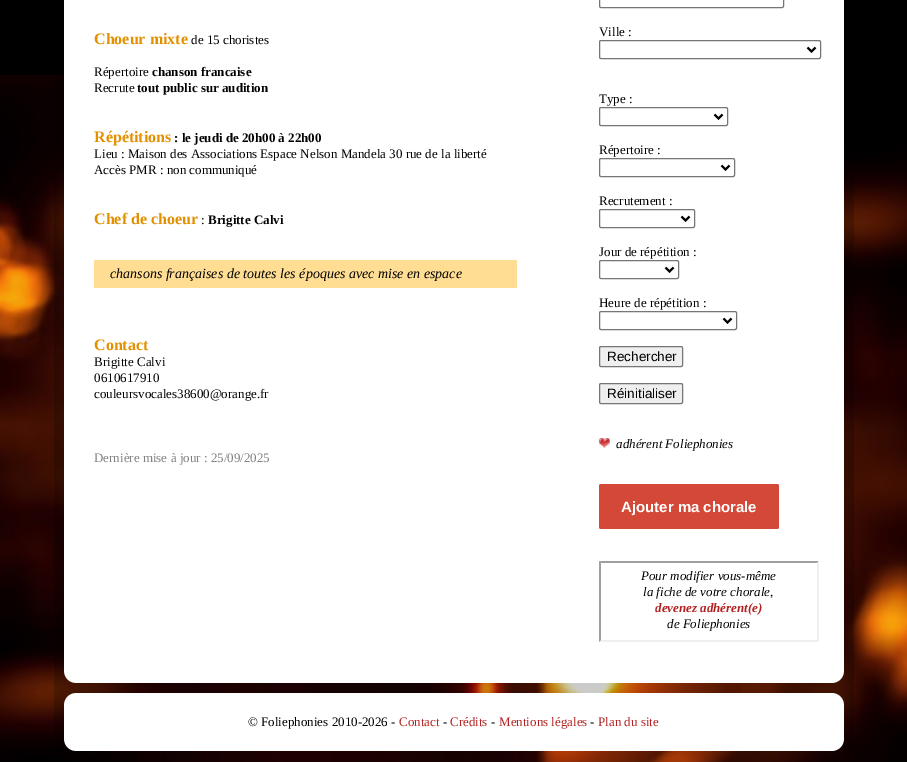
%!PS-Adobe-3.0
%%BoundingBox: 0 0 907 762
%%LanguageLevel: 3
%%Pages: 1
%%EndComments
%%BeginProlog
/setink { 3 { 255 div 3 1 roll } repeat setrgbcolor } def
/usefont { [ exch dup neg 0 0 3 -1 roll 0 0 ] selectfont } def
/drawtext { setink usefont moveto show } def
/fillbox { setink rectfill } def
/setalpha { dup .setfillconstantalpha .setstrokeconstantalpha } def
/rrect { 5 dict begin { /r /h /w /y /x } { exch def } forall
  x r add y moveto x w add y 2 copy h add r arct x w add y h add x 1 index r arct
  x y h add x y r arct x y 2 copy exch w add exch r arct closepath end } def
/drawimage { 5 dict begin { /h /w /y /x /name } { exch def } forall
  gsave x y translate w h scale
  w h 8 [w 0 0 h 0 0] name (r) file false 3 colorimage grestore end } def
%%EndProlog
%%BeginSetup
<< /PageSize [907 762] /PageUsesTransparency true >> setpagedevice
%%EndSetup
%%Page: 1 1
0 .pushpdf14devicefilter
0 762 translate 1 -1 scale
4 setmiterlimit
0 0 907 762 0 0 0 fillbox
(assets/img1.rgb) 0 75 907 687 drawimage
0.2 setalpha
54 75 800 676 0 0 0 fillbox
1 setalpha
64 0 780 672 255 255 255 fillbox
(Choeur mixte) 94 44 /LiberationSerif-Bold 16 226 143 0 drawtext
(de 15 choristes) 191 44 /LiberationSerif-Regular 13 0 0 0 drawtext
(Répertoire) 94 76 /LiberationSerif-Regular 13 0 0 0 drawtext
(chanson francaise) 152 76 /LiberationSerif-Bold 13 0 0 0 drawtext
(Recrute) 94 92 /LiberationSerif-Regular 13 0 0 0 drawtext
(tout public sur audition) 137 92 /LiberationSerif-Bold 13 0 0 0 drawtext
(Répétitions) 94 142 /LiberationSerif-Bold 16 226 143 0 drawtext
(: le jeudi de 20h00 à 22h00) 174 142 /LiberationSerif-Bold 13 0 0 0 drawtext
(Lieu : Maison des Associations Espace Nelson Mandela 30 rue de la liberté) 94 158 /LiberationSerif-Regular 13 0 0 0 drawtext
(Accès PMR : non communiqué) 94 174 /LiberationSerif-Regular 13 0 0 0 drawtext
(Chef de choeur) 94 224 /LiberationSerif-Bold 16 226 143 0 drawtext
(:) 201 224 /LiberationSerif-Regular 13 0 0 0 drawtext
(Brigitte Calvi) 208 224 /LiberationSerif-Bold 13 0 0 0 drawtext
94 260 423 28 255 221 147 fillbox
(chansons françaises de toutes les époques avec mise en espace) 110 278 /LiberationSerif-Italic 14 0 0 0 drawtext
(Contact) 94 350 /LiberationSerif-Bold 16 226 143 0 drawtext
(Brigitte Calvi) 94 366 /LiberationSerif-Regular 13 0 0 0 drawtext
(0610617910) 94 382 /LiberationSerif-Regular 13 0 0 0 drawtext
(couleursvocales38600@orange.fr) 94 398 /LiberationSerif-Regular 13 0 0 0 drawtext
(Dernière mise à jour : 25/09/2025) 94 462 /LiberationSerif-Regular 13 128 128 128 drawtext
118 118 118 setink
599.5 -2.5 184 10 1.5 rrect stroke
(Ville :) 599 36 /LiberationSerif-Regular 13 0 0 0 drawtext
118 118 118 setink
599.5 40.5 221 18 1.5 rrect stroke
0 0 0 setink
2 setlinewidth
807.5 47.5 moveto 811.5 51.5 lineto 815.5 47.5 lineto stroke
(Type :) 599 103 /LiberationSerif-Regular 13 0 0 0 drawtext
118 118 118 setink
1 setlinewidth
599.5 107.5 128 18 1.5 rrect stroke
0 0 0 setink
2 setlinewidth
714.5 114.5 moveto 718.5 118.5 lineto 722.5 114.5 lineto stroke
(Répertoire :) 599 154 /LiberationSerif-Regular 13 0 0 0 drawtext
118 118 118 setink
1 setlinewidth
599.5 158.5 135 18 1.5 rrect stroke
0 0 0 setink
2 setlinewidth
721.5 165.5 moveto 725.5 169.5 lineto 729.5 165.5 lineto stroke
(Recrutement :) 599 205 /LiberationSerif-Regular 13 0 0 0 drawtext
118 118 118 setink
1 setlinewidth
599.5 209.5 95 18 1.5 rrect stroke
0 0 0 setink
2 setlinewidth
681.5 216.5 moveto 685.5 220.5 lineto 689.5 216.5 lineto stroke
(Jour de répétition :) 599 256 /LiberationSerif-Regular 13 0 0 0 drawtext
118 118 118 setink
1 setlinewidth
599.5 260.5 79 18 1.5 rrect stroke
0 0 0 setink
2 setlinewidth
665.5 267.5 moveto 669.5 271.5 lineto 673.5 267.5 lineto stroke
(Heure de répétition :) 599 307 /LiberationSerif-Regular 13 0 0 0 drawtext
118 118 118 setink
1 setlinewidth
599.5 311.5 137 18 1.5 rrect stroke
0 0 0 setink
2 setlinewidth
723.5 318.5 moveto 727.5 322.5 lineto 731.5 318.5 lineto stroke
239 239 239 setink
599.5 346.5 83 20 1.5 rrect gsave fill grestore
118 118 118 setink
1 setlinewidth
stroke
(Rechercher) 607 361 /LiberationSans-Regular 13.5 0 0 0 drawtext
239 239 239 setink
599.5 383.5 83 20 1.5 rrect gsave fill grestore
118 118 118 setink
stroke
(Réinitialiser) 607 398 /LiberationSans-Regular 13.5 0 0 0 drawtext
(assets/img2.rgb) 599 438 11 10 drawimage
(adhérent Foliephonies) 616 448 /LiberationSerif-Italic 13 0 0 0 drawtext
211 72 54 setink
599 484 180 45 2 rrect fill
(Ajouter ma chorale) 621 512 /LiberationSans-Bold 15 255 255 255 drawtext
159 159 159 setink
599 561 moveto 819 561 lineto 817 563 lineto 601 563 lineto closepath fill
239 239 239 setink
819 561 moveto 819 642 lineto 817 640 lineto 817 563 lineto closepath fill
819 642 moveto 599 642 lineto 601 640 lineto 817 640 lineto closepath fill
159 159 159 setink
599 642 moveto 599 561 lineto 601 563 lineto 601 640 lineto closepath fill
(Pour modifier vous-même) 641 580 /LiberationSerif-Italic 13 0 0 0 drawtext
(la fiche de votre chorale,) 643 596 /LiberationSerif-Italic 13 0 0 0 drawtext
(devenez adhérent\(e\)) 655 612 /LiberationSerif-BoldItalic 13 178 34 34 drawtext
(de Foliephonies) 667 628 /LiberationSerif-Italic 13 0 0 0 drawtext
(assets/img3.rgb) 64 672 780 11 drawimage
(assets/img4.rgb) 64 693 780 11 drawimage
64 704 780 36 255 255 255 fillbox
(© Foliephonies 2010-2026 -) 248 726 /LiberationSerif-Regular 13 0 0 0 drawtext
(Contact) 399 726 /LiberationSerif-Regular 13 178 34 34 drawtext
(-) 443 726 /LiberationSerif-Regular 13 0 0 0 drawtext
(Crédits) 450 726 /LiberationSerif-Regular 13 178 34 34 drawtext
(-) 491 726 /LiberationSerif-Regular 13 0 0 0 drawtext
(Mentions légales) 499 726 /LiberationSerif-Regular 13 178 34 34 drawtext
(-) 590 726 /LiberationSerif-Regular 13 0 0 0 drawtext
(Plan du site) 598 726 /LiberationSerif-Regular 13 178 34 34 drawtext
(assets/img5.rgb) 64 740 780 11 drawimage
0.2 setalpha
162 751 677 11 0 0 0 fillbox
.poppdf14devicefilter showpage
%%EOF
